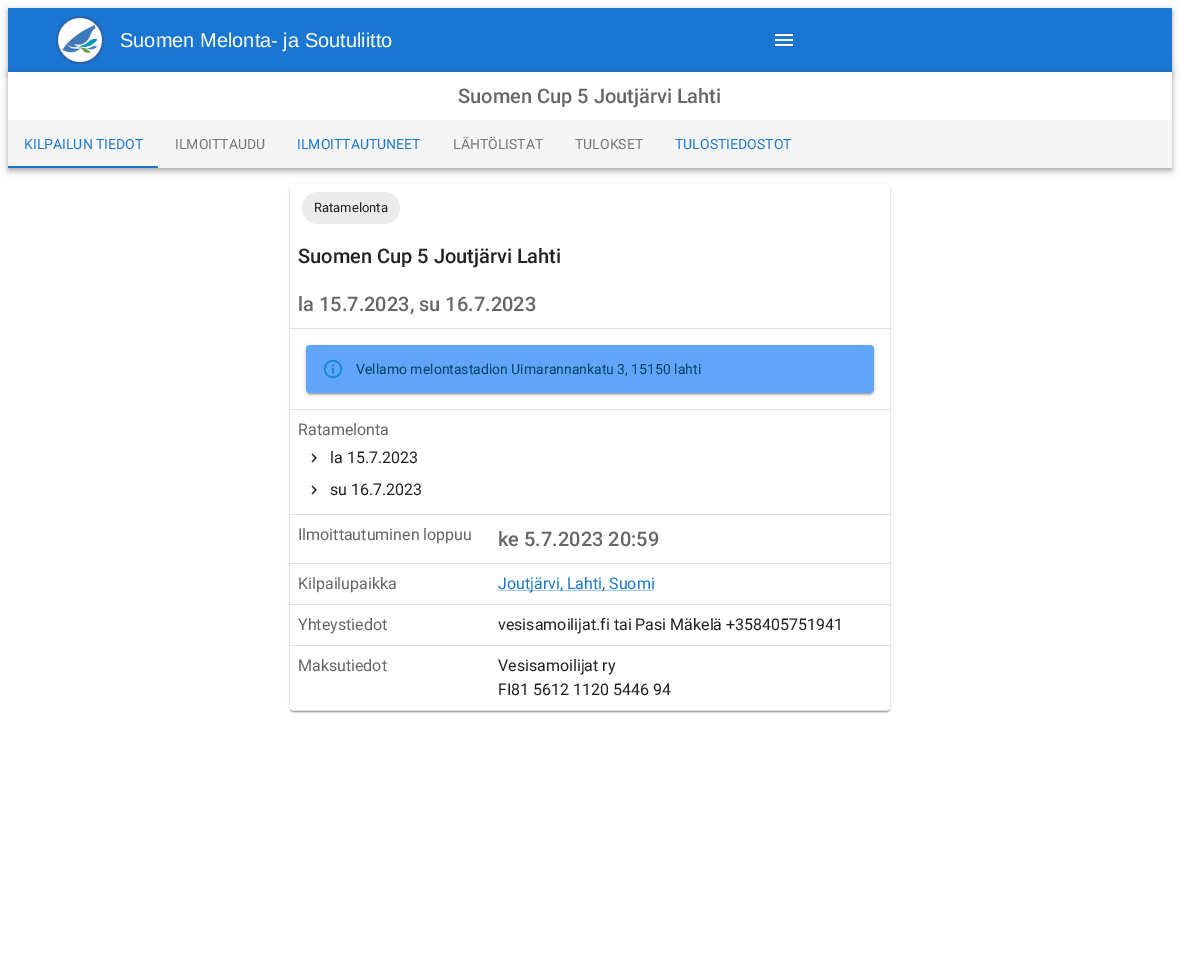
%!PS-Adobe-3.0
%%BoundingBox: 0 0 1180 968
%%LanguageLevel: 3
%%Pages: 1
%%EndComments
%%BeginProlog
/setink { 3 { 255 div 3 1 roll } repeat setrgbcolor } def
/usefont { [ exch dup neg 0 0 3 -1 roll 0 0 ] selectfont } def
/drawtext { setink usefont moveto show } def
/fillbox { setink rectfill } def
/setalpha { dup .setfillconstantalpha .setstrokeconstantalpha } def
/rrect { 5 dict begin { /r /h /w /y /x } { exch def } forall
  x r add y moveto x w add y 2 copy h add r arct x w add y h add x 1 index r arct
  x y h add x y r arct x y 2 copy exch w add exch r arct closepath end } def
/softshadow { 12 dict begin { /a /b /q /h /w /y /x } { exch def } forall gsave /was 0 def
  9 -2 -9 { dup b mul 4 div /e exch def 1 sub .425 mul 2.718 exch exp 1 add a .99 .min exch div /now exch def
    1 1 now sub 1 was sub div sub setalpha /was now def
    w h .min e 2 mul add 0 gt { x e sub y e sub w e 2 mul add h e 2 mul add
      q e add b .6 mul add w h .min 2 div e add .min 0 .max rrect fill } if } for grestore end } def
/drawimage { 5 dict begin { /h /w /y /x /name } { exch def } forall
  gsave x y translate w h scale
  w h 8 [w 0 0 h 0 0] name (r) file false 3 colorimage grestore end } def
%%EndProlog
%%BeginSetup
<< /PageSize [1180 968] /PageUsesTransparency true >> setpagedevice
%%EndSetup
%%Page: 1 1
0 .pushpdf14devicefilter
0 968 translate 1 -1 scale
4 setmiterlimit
0 0 1180 968 255 255 255 fillbox
0 0 0 setink
8 9 1164 64 0 5 0.12 softshadow
8 12 1164 64 0 2.5 0.14 softshadow
9 11 1162 62 0 2 0.2 softshadow
8 8 1164 64 25 118 210 fillbox
0 0 0 setink
8 73 1164 96 0 5 0.12 softshadow
(assets/img1.rgb) 56 16 48 48 drawimage
(Suomen Melonta- ja Soutuliitto) 120 47 /LiberationSans-Regular 20 255 255 255 drawtext
(assets/img2.rgb) 775 34 18 12 drawimage
0 0 0 setink
8 76 1164 96 0 2.5 0.14 softshadow
9 75 1162 94 0 2 0.2 softshadow
8 120 1164 48 245 245 245 fillbox
8 72 1164 48 255 255 255 fillbox
(Suomen Cup 5 Joutjärvi Lahti) 458 103 /Roboto-Medium 20 102 102 102 drawtext
(KILPAILUN TIEDOT) 24 149 /Roboto-Regular 14 25 118 210 drawtext
(ILMOITTAUDU) 175 149 /Roboto-Regular 14 117 117 117 drawtext
(ILMOITTAUTUNEET) 297 149 /Roboto-Regular 14 25 118 210 drawtext
(LÄHTÖLISTAT) 453 149 /Roboto-Regular 14 117 117 117 drawtext
(TULOKSET) 575 149 /Roboto-Regular 14 117 117 117 drawtext
(TULOSTIEDOSTOT) 675 149 /Roboto-Regular 14 25 118 210 drawtext
8 166 150 2 25 118 210 fillbox
0 0 0 setink
290 185 600 527 4 1.5 0.12 softshadow
290 185 600 527 4 0.5 0.14 softshadow
291 187 598 525 3 0.5 0.2 softshadow
255 255 255 setink
290 184 600 527 4 rrect fill
235 235 235 setink
302 192 98 32 16 rrect fill
(Ratamelonta) 314 212 /Roboto-Regular 13 33 33 33 drawtext
(Suomen Cup 5 Joutjärvi Lahti) 298 263 /Roboto-Medium 20 33 33 33 drawtext
(la 15.7.2023, su 16.7.2023) 298 311 /Roboto-Medium 20 102 102 102 drawtext
290 328 600 1 224 224 224 fillbox
0 0 0 setink
306 346 568 48 4 2.5 0.12 softshadow
306 347 568 48 4 1 0.14 softshadow
308 350 564 44 2 0.5 0.2 softshadow
96 165 250 setink
306 345 568 48 4 rrect fill
(assets/img3.rgb) 323 359 20 20 drawimage
(Vellamo melontastadion Uimarannankatu 3, 15150 lahti) 356 374 /Roboto-Regular 14 1 67 97 drawtext
290 409 600 1 224 224 224 fillbox
(Ratamelonta) 298 435 /Roboto-Regular 16 102 102 102 drawtext
(assets/img4.rgb) 311 453 6 10 drawimage
(la 15.7.2023) 330 463 /Roboto-Regular 16 33 33 33 drawtext
(assets/img4.rgb) 311 485 6 10 drawimage
(su 16.7.2023) 330 495 /Roboto-Regular 16 33 33 33 drawtext
290 514 600 1 224 224 224 fillbox
(Ilmoittautuminen loppuu) 298 540 /Roboto-Regular 16 102 102 102 drawtext
(ke 5.7.2023 20:59) 498 546 /Roboto-Medium 20 102 102 102 drawtext
290 563 600 1 224 224 224 fillbox
(Kilpailupaikka) 298 589 /Roboto-Regular 16 102 102 102 drawtext
498 590 156 1 163 200 237 fillbox
(Joutjärvi, Lahti, Suomi) 498 589 /Roboto-Regular 16 25 118 210 drawtext
290 604 600 1 224 224 224 fillbox
(Yhteystiedot) 298 630 /Roboto-Regular 16 102 102 102 drawtext
(vesisamoilijat.fi tai Pasi Mäkelä +358405751941) 498 630 /Roboto-Regular 16 33 33 33 drawtext
290 645 600 1 224 224 224 fillbox
(Maksutiedot) 298 671 /Roboto-Regular 16 102 102 102 drawtext
(Vesisamoilijat ry) 498 671 /Roboto-Regular 16 33 33 33 drawtext
(FI81 5612 1120 5446 94) 498 695 /Roboto-Regular 16 33 33 33 drawtext
0.12 setalpha
290 710 600 1 0 0 0 fillbox
.poppdf14devicefilter showpage
%%EOF
